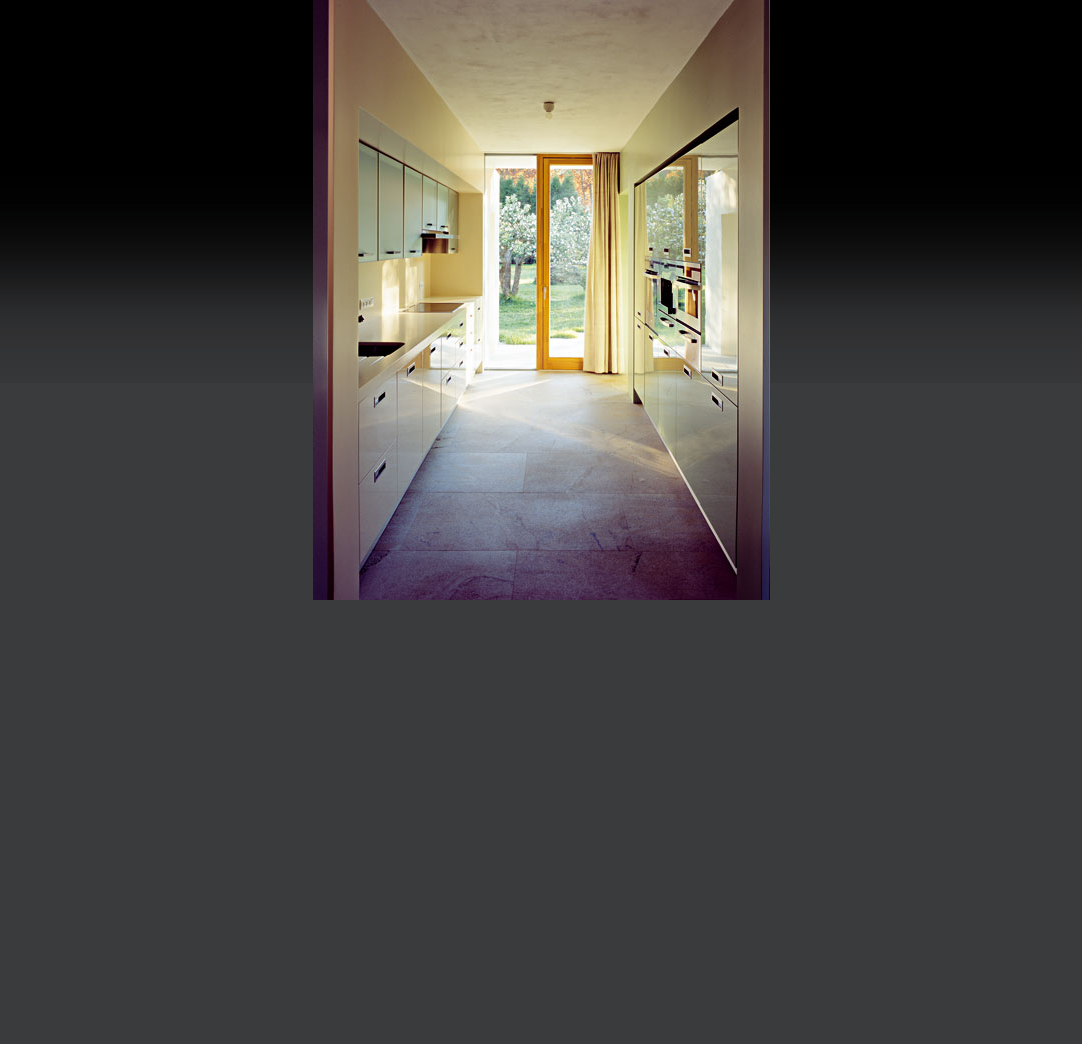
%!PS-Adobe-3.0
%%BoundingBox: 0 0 1082 1044
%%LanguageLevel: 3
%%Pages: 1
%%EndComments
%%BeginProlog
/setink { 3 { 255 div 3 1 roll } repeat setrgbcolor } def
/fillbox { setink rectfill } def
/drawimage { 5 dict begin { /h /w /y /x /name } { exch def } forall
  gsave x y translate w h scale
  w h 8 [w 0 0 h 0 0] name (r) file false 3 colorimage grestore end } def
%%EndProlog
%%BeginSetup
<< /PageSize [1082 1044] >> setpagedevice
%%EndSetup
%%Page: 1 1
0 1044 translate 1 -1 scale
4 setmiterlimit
0 0 1082 1044 57 59 61 fillbox
(assets/img1.rgb) 0 0 1082 383 drawimage
(assets/img2.rgb) 313 0 457 600 drawimage
showpage
%%EOF
